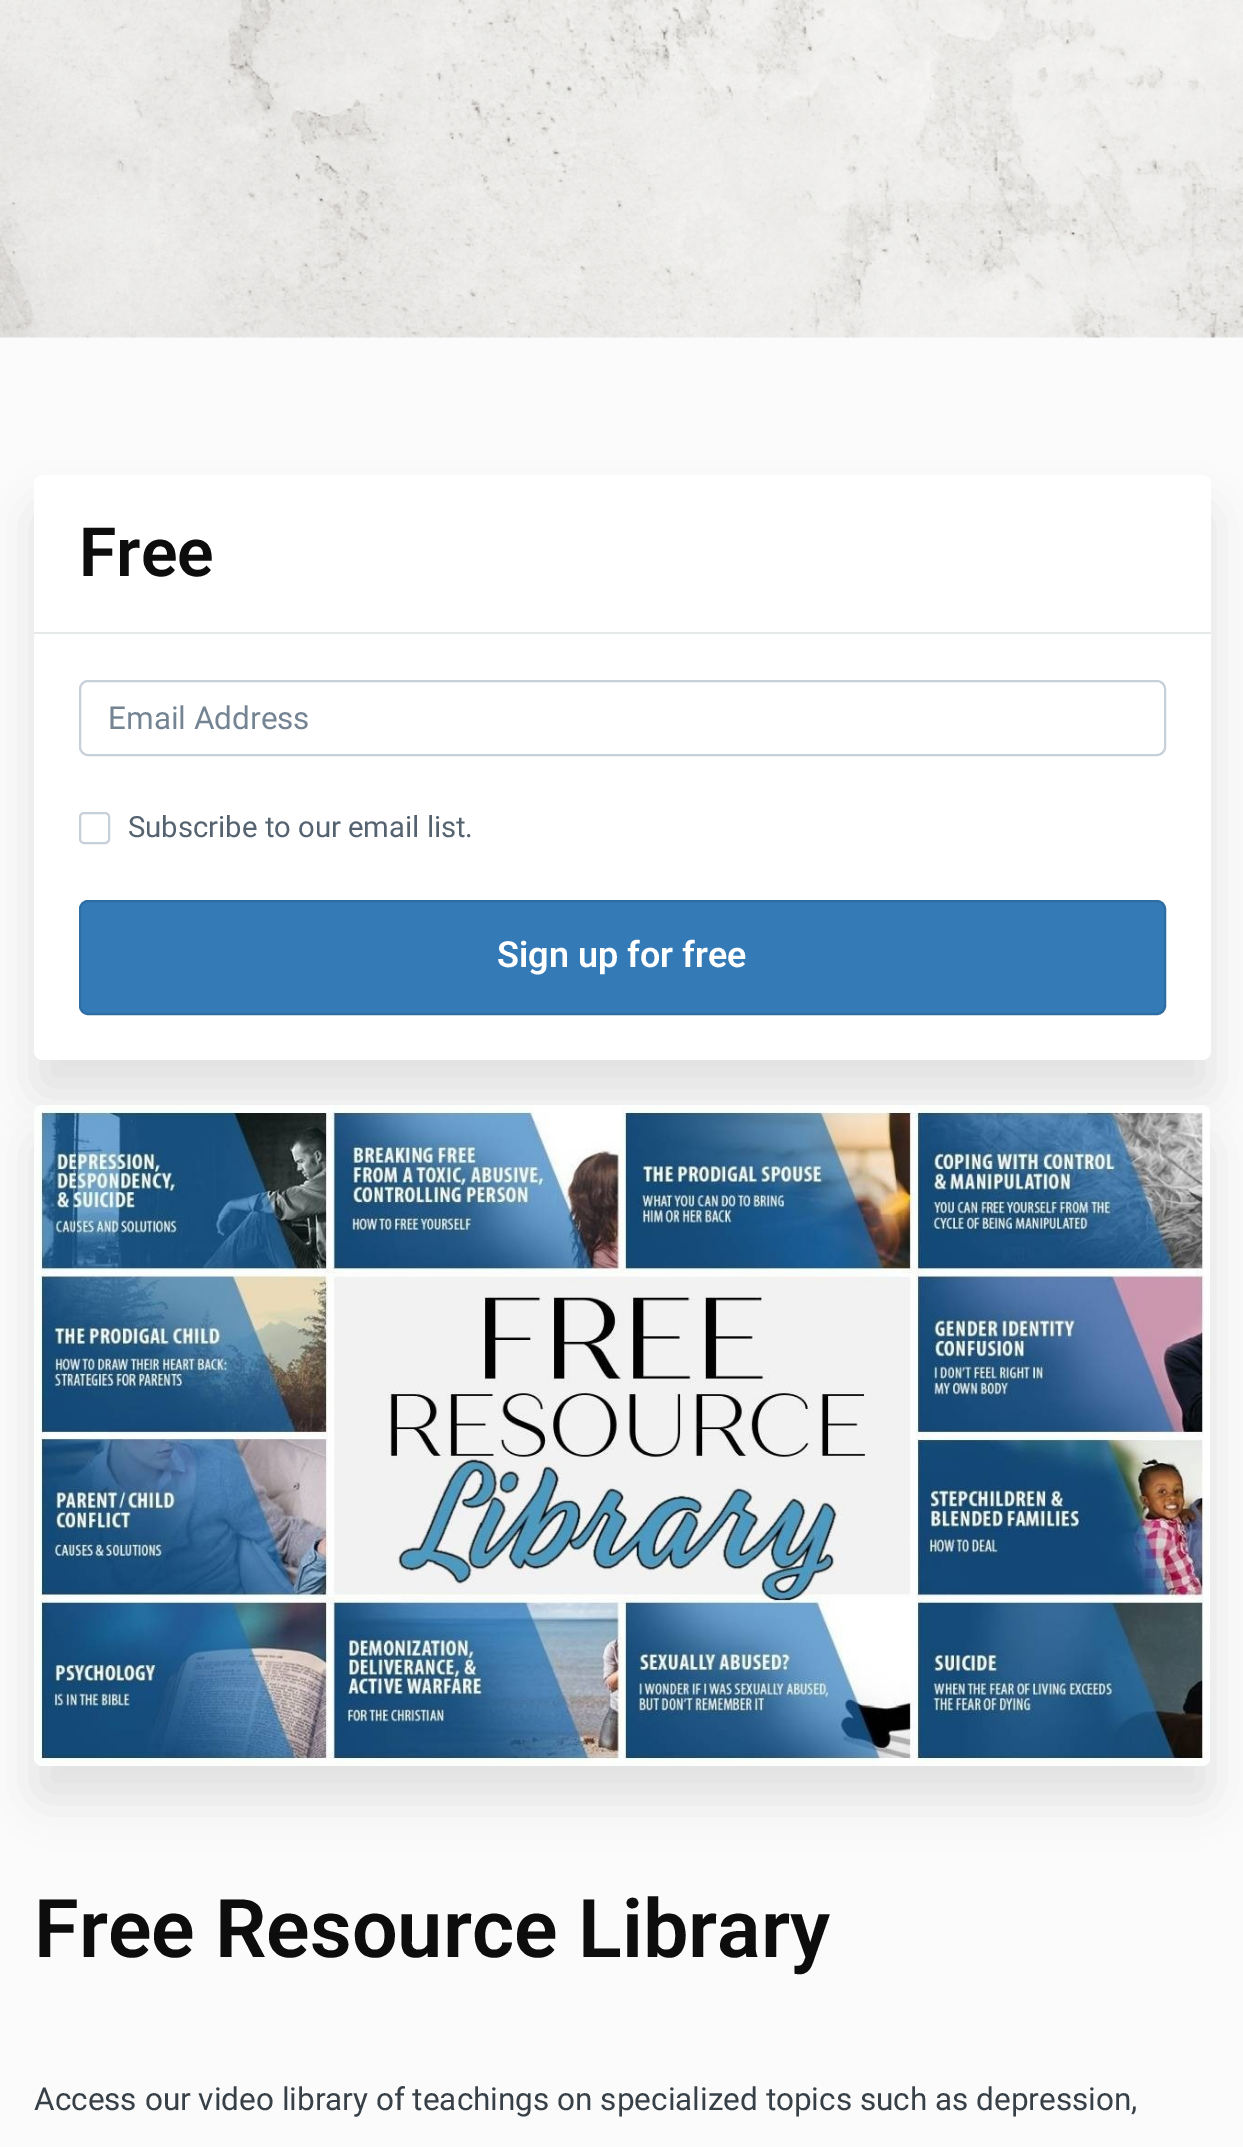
%!PS-Adobe-3.0
%%BoundingBox: 0 0 1243 2147
%%LanguageLevel: 3
%%Pages: 1
%%EndComments
%%BeginProlog
/setink { 3 { 255 div 3 1 roll } repeat setrgbcolor } def
/usefont { [ exch dup neg 0 0 3 -1 roll 0 0 ] selectfont } def
/drawtext { setink usefont moveto show } def
/fillbox { setink rectfill } def
/setalpha { dup .setfillconstantalpha .setstrokeconstantalpha } def
/rrect { 5 dict begin { /r /h /w /y /x } { exch def } forall
  x r add y moveto x w add y 2 copy h add r arct x w add y h add x 1 index r arct
  x y h add x y r arct x y 2 copy exch w add exch r arct closepath end } def
/softshadow { 12 dict begin { /a /b /q /h /w /y /x } { exch def } forall gsave /was 0 def
  9 -2 -9 { dup b mul 4 div /e exch def 1 sub .425 mul 2.718 exch exp 1 add a .99 .min exch div /now exch def
    1 1 now sub 1 was sub div sub setalpha /was now def
    w h .min e 2 mul add 0 gt { x e sub y e sub w e 2 mul add h e 2 mul add
      q e add b .6 mul add w h .min 2 div e add .min 0 .max rrect fill } if } for grestore end } def
/drawimage { 5 dict begin { /h /w /y /x /name } { exch def } forall
  gsave x y translate w h scale
  w h 8 [w 0 0 h 0 0] name (r) file false 3 colorimage grestore end } def
%%EndProlog
%%BeginSetup
<< /PageSize [1243 2147] /PageUsesTransparency true >> setpagedevice
%%EndSetup
%%Page: 1 1
0 .pushpdf14devicefilter
0 2147 translate 1 -1 scale
4 setmiterlimit
0 0 1243 2147 251 251 251 fillbox
(assets/img1.rgb) 0 0 1243 338 drawimage
0 0 0 setink
34 509 1177 585 9 22.5 0.1 softshadow
255 255 255 setink
34 475 1177 585 9 rrect fill
34 632 1177 2 229 233 233 fillbox
(Free) 79 576 /Roboto-SemiBold 68 13 13 13 drawtext
199 207 216 setink
2 setlinewidth
80 681 1085 74 8 rrect stroke
(Email Address) 108 729 /Roboto-Regular 31.5 116 132 147 drawtext
199 207 216 setink
80 813 29 30 4 rrect stroke
(Subscribe to our email list.) 128 837 /Roboto-Regular 29.25 85 99 112 drawtext
51 122 183 setink
80 901 1085 113 8 rrect gsave fill grestore
46 109 164 setink
stroke
(Sign up for free) 497 967 /Roboto-SemiBold 36 255 255 255 drawtext
0 0 0 setink
34 1139 1177 661 9 22.5 0.1 softshadow
(assets/img2.rgb) 34 1105 1176 661 drawimage
(Free Resource Library) 34 1957 /Roboto-SemiBold 81 13 13 13 drawtext
(Access our video library of teachings on specialized topics such as depression,) 34 2110 /Roboto-Regular 31.5 55 63 71 drawtext
.poppdf14devicefilter showpage
%%EOF
